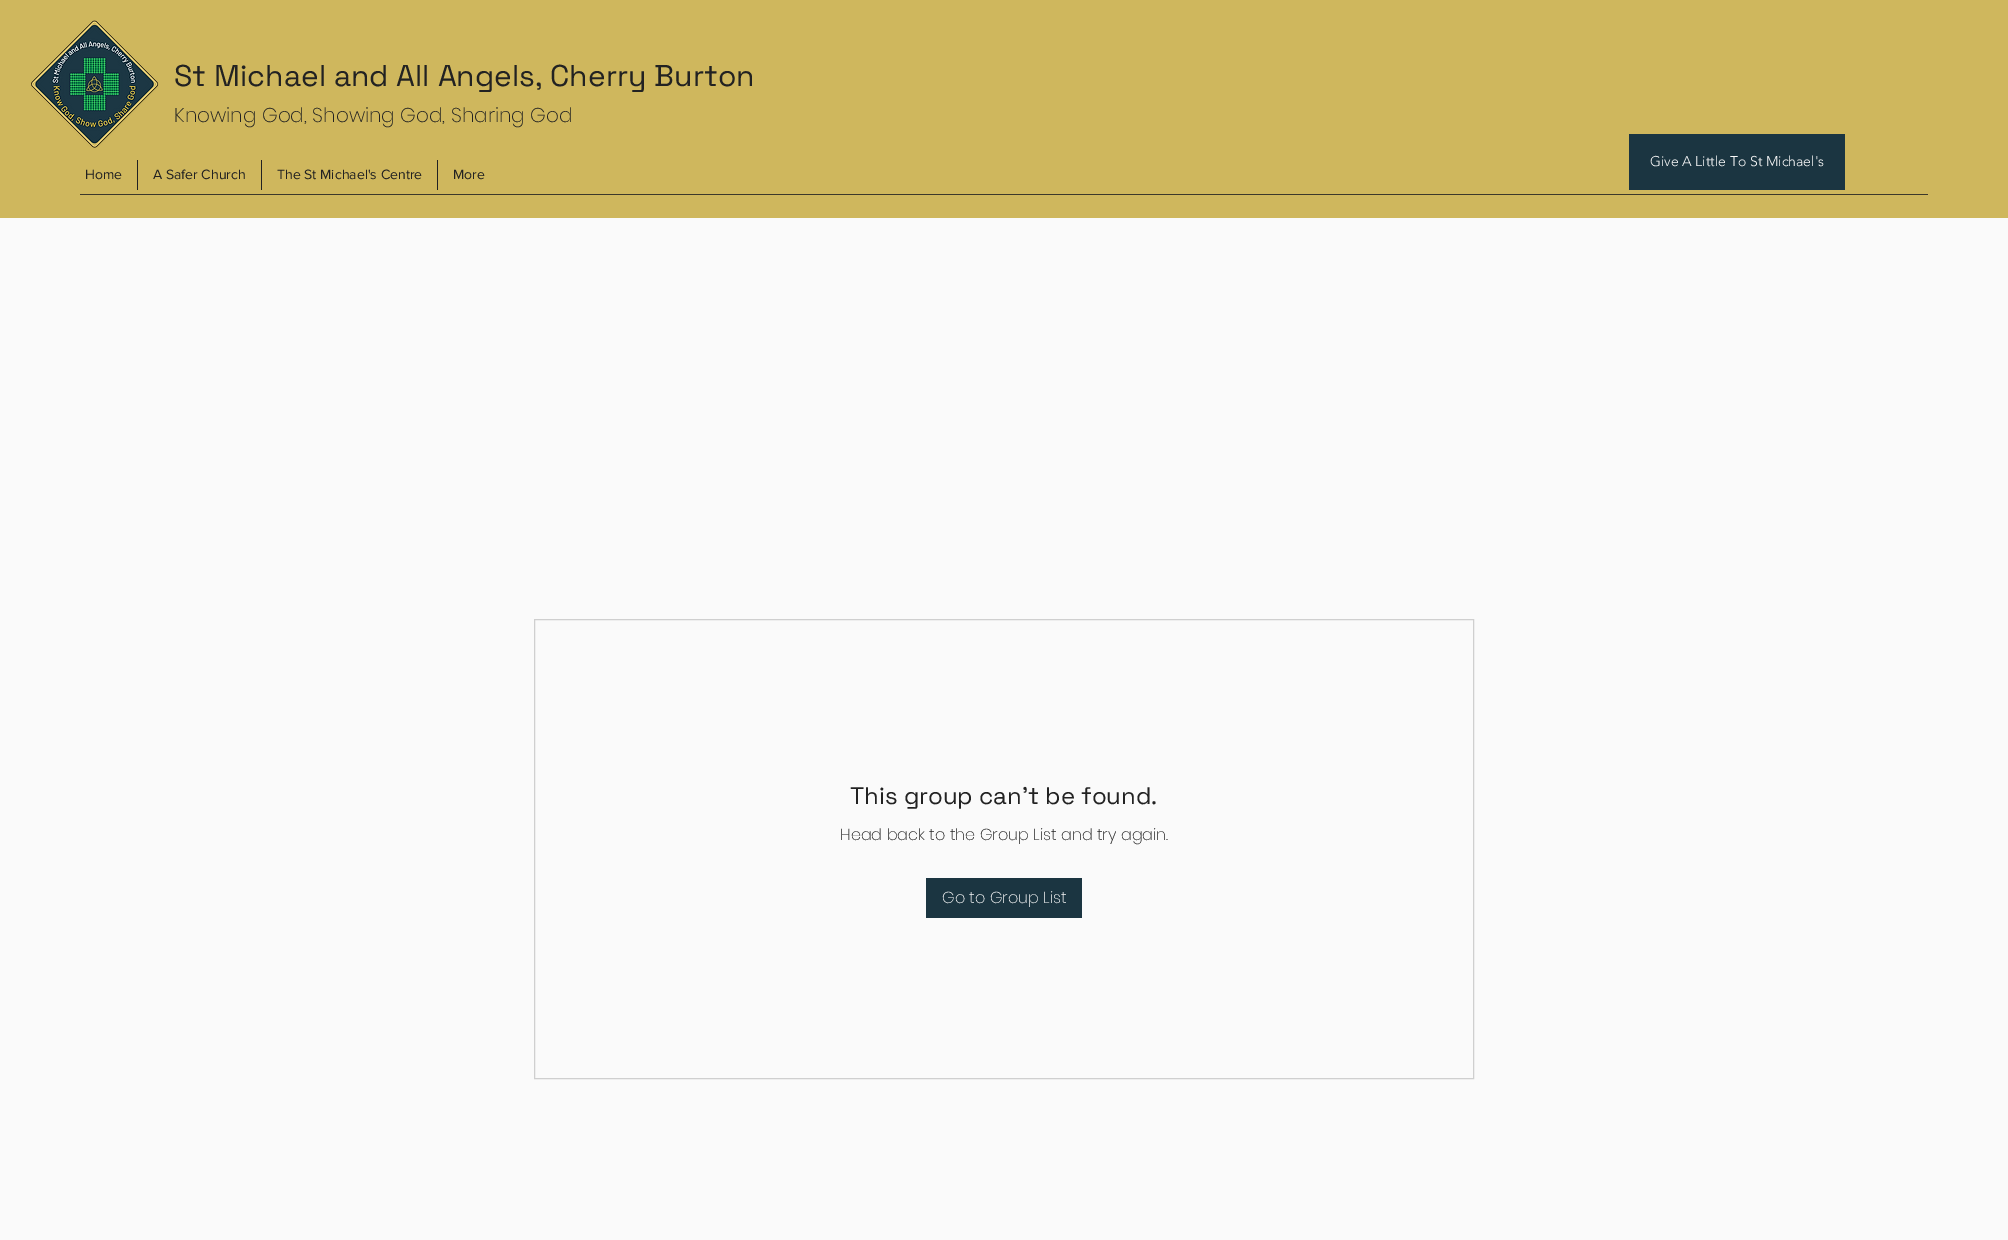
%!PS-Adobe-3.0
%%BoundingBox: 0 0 2008 1240
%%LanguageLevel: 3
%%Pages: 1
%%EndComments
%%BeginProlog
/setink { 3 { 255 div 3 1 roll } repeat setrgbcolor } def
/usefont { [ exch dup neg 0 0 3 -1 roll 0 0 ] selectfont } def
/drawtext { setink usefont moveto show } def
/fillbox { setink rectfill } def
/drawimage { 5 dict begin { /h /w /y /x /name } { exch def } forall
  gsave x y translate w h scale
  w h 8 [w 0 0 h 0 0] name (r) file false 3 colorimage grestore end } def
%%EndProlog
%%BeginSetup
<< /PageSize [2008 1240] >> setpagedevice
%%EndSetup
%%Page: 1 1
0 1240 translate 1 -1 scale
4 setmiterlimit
0 0 2008 1240 250 250 250 fillbox
0 0 2008 218 207 183 93 fillbox
(assets/img1.rgb) 31 20 128 128 drawimage
(St Michael and All Angels, Cherry Burton) 174 86 /SpaceGrotesk-Regular 30 34 34 34 drawtext
(Knowing God, Showing God, Sharing God) 174 122 /Poppins-ExtraLight 20 34 34 34 drawtext
1629 134 216 56 27 53 65 fillbox
(Give A Little To St Michael's) 1650 166 /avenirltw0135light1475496-Light 14 250 250 250 drawtext
(Home) 85 179 /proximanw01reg-Regular 14 34 34 34 drawtext
137 160 1 30 34 34 34 fillbox
(A Safer Church) 153 179 /proximanw01reg-Regular 14 34 34 34 drawtext
261 160 1 30 34 34 34 fillbox
(The St Michael's Centre) 277 179 /proximanw01reg-Regular 14 34 34 34 drawtext
437 160 1 30 34 34 34 fillbox
(More) 453 179 /proximanw01reg-Regular 14 34 34 34 drawtext
80 194 1848 1 60 56 43 fillbox
207 207 207 setink
534.5 619.5 939 459 rectstroke
(This group can't be found.) 850 804 /SpaceGrotesk-Regular 24 34 34 34 drawtext
(Head back to the Group List and try again.) 840 840 /Poppins-ExtraLight 16 34 34 34 drawtext
926 878 156 40 27 53 65 fillbox
(Go to Group List) 942 903 /Poppins-ExtraLight 16 250 250 250 drawtext
showpage
%%EOF
